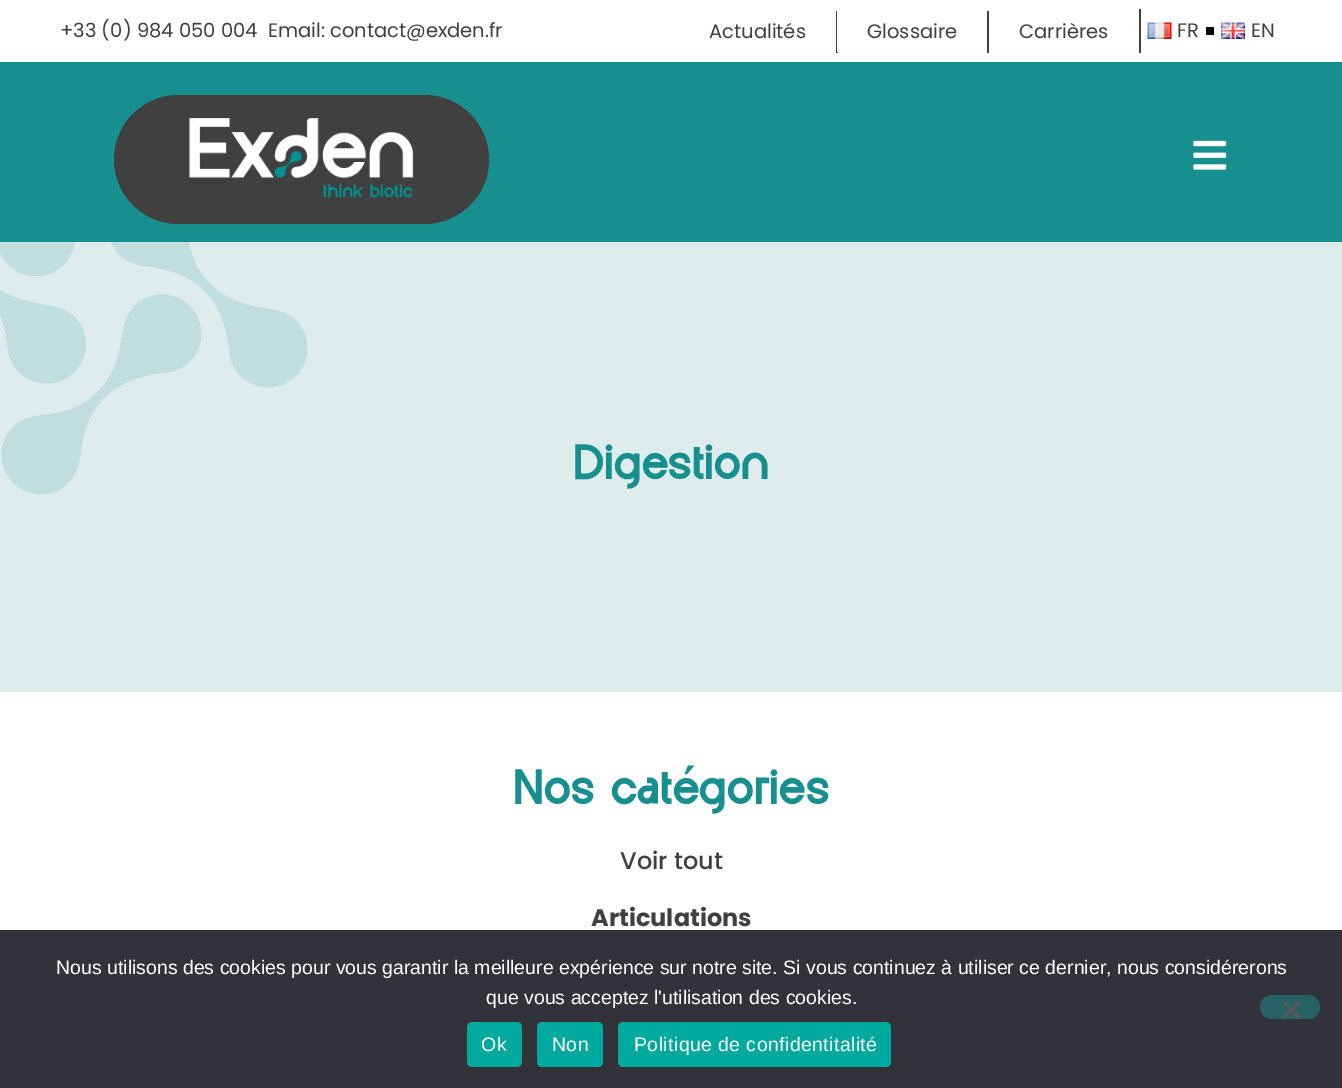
%!PS-Adobe-3.0
%%BoundingBox: 0 0 1342 1088
%%LanguageLevel: 3
%%Pages: 1
%%EndComments
%%BeginProlog
/setink { 3 { 255 div 3 1 roll } repeat setrgbcolor } def
/usefont { [ exch dup neg 0 0 3 -1 roll 0 0 ] selectfont } def
/drawtext { setink usefont moveto show } def
/fillbox { setink rectfill } def
/rrect { 5 dict begin { /r /h /w /y /x } { exch def } forall
  x r add y moveto x w add y 2 copy h add r arct x w add y h add x 1 index r arct
  x y h add x y r arct x y 2 copy exch w add exch r arct closepath end } def
/drawimage { 5 dict begin { /h /w /y /x /name } { exch def } forall
  gsave x y translate w h scale
  w h 8 [w 0 0 h 0 0] name (r) file false 3 colorimage grestore end } def
%%EndProlog
%%BeginSetup
<< /PageSize [1342 1088] >> setpagedevice
%%EndSetup
%%Page: 1 1
0 1088 translate 1 -1 scale
4 setmiterlimit
0 0 1342 1088 255 255 255 fillbox
(+33 \(0\) 984 050 004  Email: contact@exden.fr) 60 37 /Poppins-Regular 19.5 64 64 64 drawtext
836 11 2 42 64 64 64 fillbox
(Actualités) 709 38 /Poppins-Regular 19.5 64 64 64 drawtext
255 255 255 setink
838 9 moveto 987 9 lineto 987 52 lineto 838 52 lineto 838 52 837 52 837 51 curveto 837 10 lineto 837 10 838 9 838 9 curveto closepath fill
987 11 2 42 64 64 64 fillbox
(Glossaire) 867 38 /Poppins-Regular 19.5 64 64 64 drawtext
1139 9 2 44 64 64 64 fillbox
(Carrières) 1019 38 /Poppins-Regular 19.5 64 64 64 drawtext
(assets/img1.rgb) 1147 22 25 17 drawimage
(FR) 1177 37 /Poppins-Regular 19.5 64 64 64 drawtext
1206 27 8 8 0 0 0 fillbox
(assets/img2.rgb) 1221 22 24 17 drawimage
(EN) 1251 37 /Poppins-Regular 19.5 64 64 64 drawtext
0 62 1342 180 24 143 143 fillbox
64 64 64 setink
114 95 375 129 64.5 rrect fill
(assets/img3.rgb) 189 118 225 80 drawimage
(assets/img4.rgb) 1193 140 34 30 drawimage
0 242 1342 450 222 236 236 fillbox
(assets/img5.rgb) 0 242 308 253 drawimage
(Digestion) 573 479 /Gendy-Regular 49.5 24 143 143 drawtext
(Nos catégories) 513 804 /Gendy-Regular 49.5 24 143 143 drawtext
(Voir tout) 620 869 /Poppins-Medium 24 64 64 64 drawtext
(Articulations) 591 926 /Poppins-Bold 24 64 64 64 drawtext
0 930 1342 158 50 50 58 fillbox
(Nous utilisons des cookies pour vous garantir la meilleure expérience sur notre site. Si vous continuez à utiliser ce dernier, nous considérerons) 56 974 /LiberationSans-Regular 19.5 255 255 255 drawtext
(que vous acceptez l'utilisation des cookies.) 486 1004 /LiberationSans-Regular 19.5 255 255 255 drawtext
37 97 101 setink
1260 995 60 24 12 rrect fill
89 89 93 setink
1298.5 1001 moveto 1300.5 1003.5 lineto 1284.5 1019.5 lineto 1282.5 1017 lineto closepath fill
1282.5 1003.5 moveto 1284.5 1001 lineto 1300.5 1017 lineto 1298.5 1019.5 lineto closepath fill
0 169 157 setink
467 1022 55 45 5 rrect fill
255 255 255 setink
481 1051 moveto 0.4 0 (Ok) ashow
0 169 157 setink
537 1022 66 45 5 rrect fill
255 255 255 setink
552 1051 moveto 0.4 0 (Non) ashow
0 169 157 setink
618 1022 273 45 5 rrect fill
255 255 255 setink
634 1051 moveto 0.4 0 (Politique de confidentitalité) ashow
showpage
%%EOF
